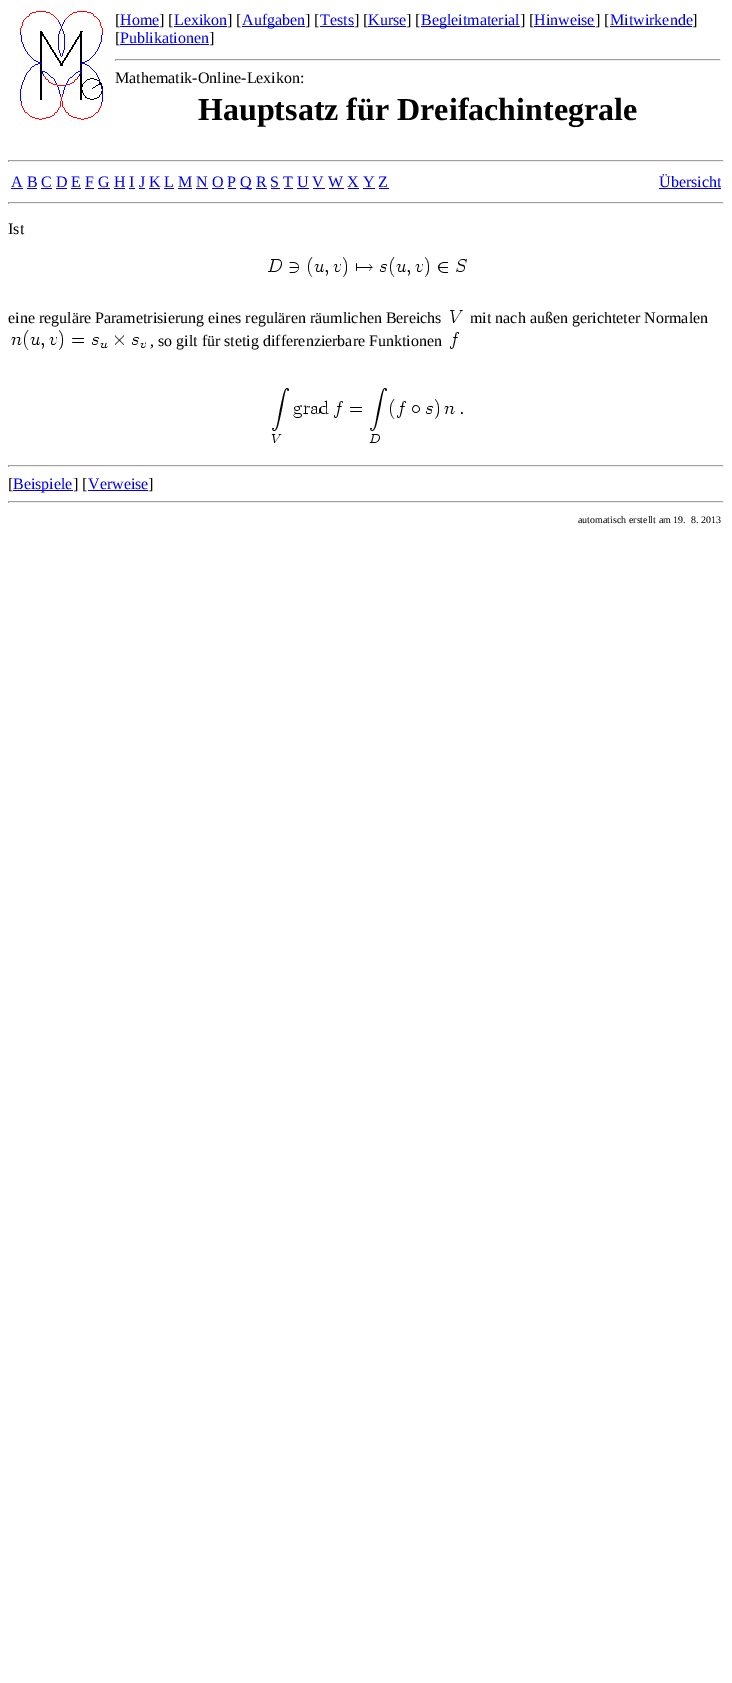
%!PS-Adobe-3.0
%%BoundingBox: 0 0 732 1683
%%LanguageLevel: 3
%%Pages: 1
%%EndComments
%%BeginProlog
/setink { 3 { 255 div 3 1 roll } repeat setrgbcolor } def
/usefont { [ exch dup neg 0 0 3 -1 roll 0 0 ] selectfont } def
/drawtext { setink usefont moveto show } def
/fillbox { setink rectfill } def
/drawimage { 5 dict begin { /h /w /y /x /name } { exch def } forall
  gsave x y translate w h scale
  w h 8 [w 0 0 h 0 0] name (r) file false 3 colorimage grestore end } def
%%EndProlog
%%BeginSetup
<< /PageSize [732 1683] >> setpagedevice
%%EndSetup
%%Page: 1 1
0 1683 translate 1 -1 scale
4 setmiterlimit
0 0 732 1683 255 255 255 fillbox
(assets/img1.rgb) 20 11 83 109 drawimage
([) 115 25 /LiberationSerif-Regular 16 0 0 0 drawtext
(Home) 120 25 /LiberationSerif-Regular 16 0 0 238 drawtext
120 26 39 1 0 0 238 fillbox
(] [) 159 25 /LiberationSerif-Regular 16 0 0 0 drawtext
(Lexikon) 174 25 /LiberationSerif-Regular 16 0 0 238 drawtext
174 26 53 1 0 0 238 fillbox
(] [) 227 25 /LiberationSerif-Regular 16 0 0 0 drawtext
242 26 63 1 0 0 238 fillbox
(Aufgaben) 242 25 /LiberationSerif-Regular 16 0 0 238 drawtext
(] [) 305 25 /LiberationSerif-Regular 16 0 0 0 drawtext
(Tests) 320 25 /LiberationSerif-Regular 16 0 0 238 drawtext
320 26 34 1 0 0 238 fillbox
(] [) 354 25 /LiberationSerif-Regular 16 0 0 0 drawtext
(Kurse) 368 25 /LiberationSerif-Regular 16 0 0 238 drawtext
368 26 38 1 0 0 238 fillbox
(] [) 406 25 /LiberationSerif-Regular 16 0 0 0 drawtext
421 26 99 1 0 0 238 fillbox
(Begleitmaterial) 421 25 /LiberationSerif-Regular 16 0 0 238 drawtext
(] [) 520 25 /LiberationSerif-Regular 16 0 0 0 drawtext
(Hinweise) 534 25 /LiberationSerif-Regular 16 0 0 238 drawtext
534 26 61 1 0 0 238 fillbox
(] [) 595 25 /LiberationSerif-Regular 16 0 0 0 drawtext
(Mitwirkende) 610 25 /LiberationSerif-Regular 16 0 0 238 drawtext
610 26 82 1 0 0 238 fillbox
(]) 692 25 /LiberationSerif-Regular 16 0 0 0 drawtext
([) 115 43 /LiberationSerif-Regular 16 0 0 0 drawtext
(Publikationen) 120 43 /LiberationSerif-Regular 16 0 0 238 drawtext
120 44 89 1 0 0 238 fillbox
(]) 209 43 /LiberationSerif-Regular 16 0 0 0 drawtext
115 59 606 1 159 159 159 fillbox
720 59 1 2 238 238 238 fillbox
115 60 606 1 238 238 238 fillbox
115 59 1 2 159 159 159 fillbox
(Mathematik-Online-Lexikon:) 115 83 /LiberationSerif-Regular 16 0 0 0 drawtext
(Hauptsatz für Dreifachintegrale) 198 120 /LiberationSerif-Bold 32 0 0 0 drawtext
8 160 716 1 159 159 159 fillbox
723 160 1 2 238 238 238 fillbox
8 161 716 1 238 238 238 fillbox
8 160 1 2 159 159 159 fillbox
(A B C D E F G H I J K L M N O P) 11 187 /LiberationSerif-Regular 16 0 0 238 drawtext
11 188 12 1 0 0 238 fillbox
240 188 12 1 0 0 238 fillbox
(Q R S T U V W X Y Z) 240 187 /LiberationSerif-Regular 16 0 0 238 drawtext
27 188 10 1 0 0 238 fillbox
41 188 11 1 0 0 238 fillbox
56 188 11 1 0 0 238 fillbox
71 188 10 1 0 0 238 fillbox
85 188 9 1 0 0 238 fillbox
98 188 12 1 0 0 238 fillbox
114 188 11 1 0 0 238 fillbox
129 188 6 1 0 0 238 fillbox
139 188 6 1 0 0 238 fillbox
149 188 11 1 0 0 238 fillbox
164 188 10 1 0 0 238 fillbox
178 188 14 1 0 0 238 fillbox
196 188 12 1 0 0 238 fillbox
212 188 12 1 0 0 238 fillbox
228 188 8 1 0 0 238 fillbox
256 188 11 1 0 0 238 fillbox
271 188 9 1 0 0 238 fillbox
284 188 9 1 0 0 238 fillbox
297 188 12 1 0 0 238 fillbox
313 188 12 1 0 0 238 fillbox
329 188 15 1 0 0 238 fillbox
348 188 11 1 0 0 238 fillbox
363 188 12 1 0 0 238 fillbox
379 188 10 1 0 0 238 fillbox
(Übersicht) 659 187 /LiberationSerif-Regular 16 0 0 238 drawtext
659 188 62 1 0 0 238 fillbox
8 202 716 1 159 159 159 fillbox
723 202 1 2 238 238 238 fillbox
8 203 716 1 238 238 238 fillbox
8 202 1 2 159 159 159 fillbox
(Ist) 8 234 /LiberationSerif-Regular 16 0 0 0 drawtext
(assets/img2.rgb) 268 257 199 20 drawimage
(eine reguläre Parametrisierung eines regulären räumlichen Bereichs) 8 323 /LiberationSerif-Regular 16 0 0 0 drawtext
(assets/img3.rgb) 450 310 13 13 drawimage
(mit nach außen gerichteter Normalen) 470 323 /LiberationSerif-Regular 16 0 0 0 drawtext
(assets/img4.rgb) 11 330 135 20 drawimage
(, so gilt für stetig differenzierbare Funktionen) 150 346 /LiberationSerif-Regular 16 0 0 0 drawtext
(assets/img5.rgb) 450 332 9 17 drawimage
(assets/img6.rgb) 271 388 192 55 drawimage
8 465 716 1 159 159 159 fillbox
723 465 1 2 238 238 238 fillbox
8 466 716 1 238 238 238 fillbox
8 465 1 2 159 159 159 fillbox
([) 8 489 /LiberationSerif-Regular 16 0 0 0 drawtext
13 490 60 1 0 0 238 fillbox
(Beispiele) 13 489 /LiberationSerif-Regular 16 0 0 238 drawtext
(] [) 73 489 /LiberationSerif-Regular 16 0 0 0 drawtext
(Verweise) 88 489 /LiberationSerif-Regular 16 0 0 238 drawtext
88 490 60 1 0 0 238 fillbox
(]) 148 489 /LiberationSerif-Regular 16 0 0 0 drawtext
8 501 716 1 159 159 159 fillbox
723 501 1 2 238 238 238 fillbox
8 502 716 1 238 238 238 fillbox
8 501 1 2 159 159 159 fillbox
(automatisch erstellt am 19.  8. 2013) 578 523 /LiberationSerif-Regular 10 0 0 0 drawtext
showpage
%%EOF
